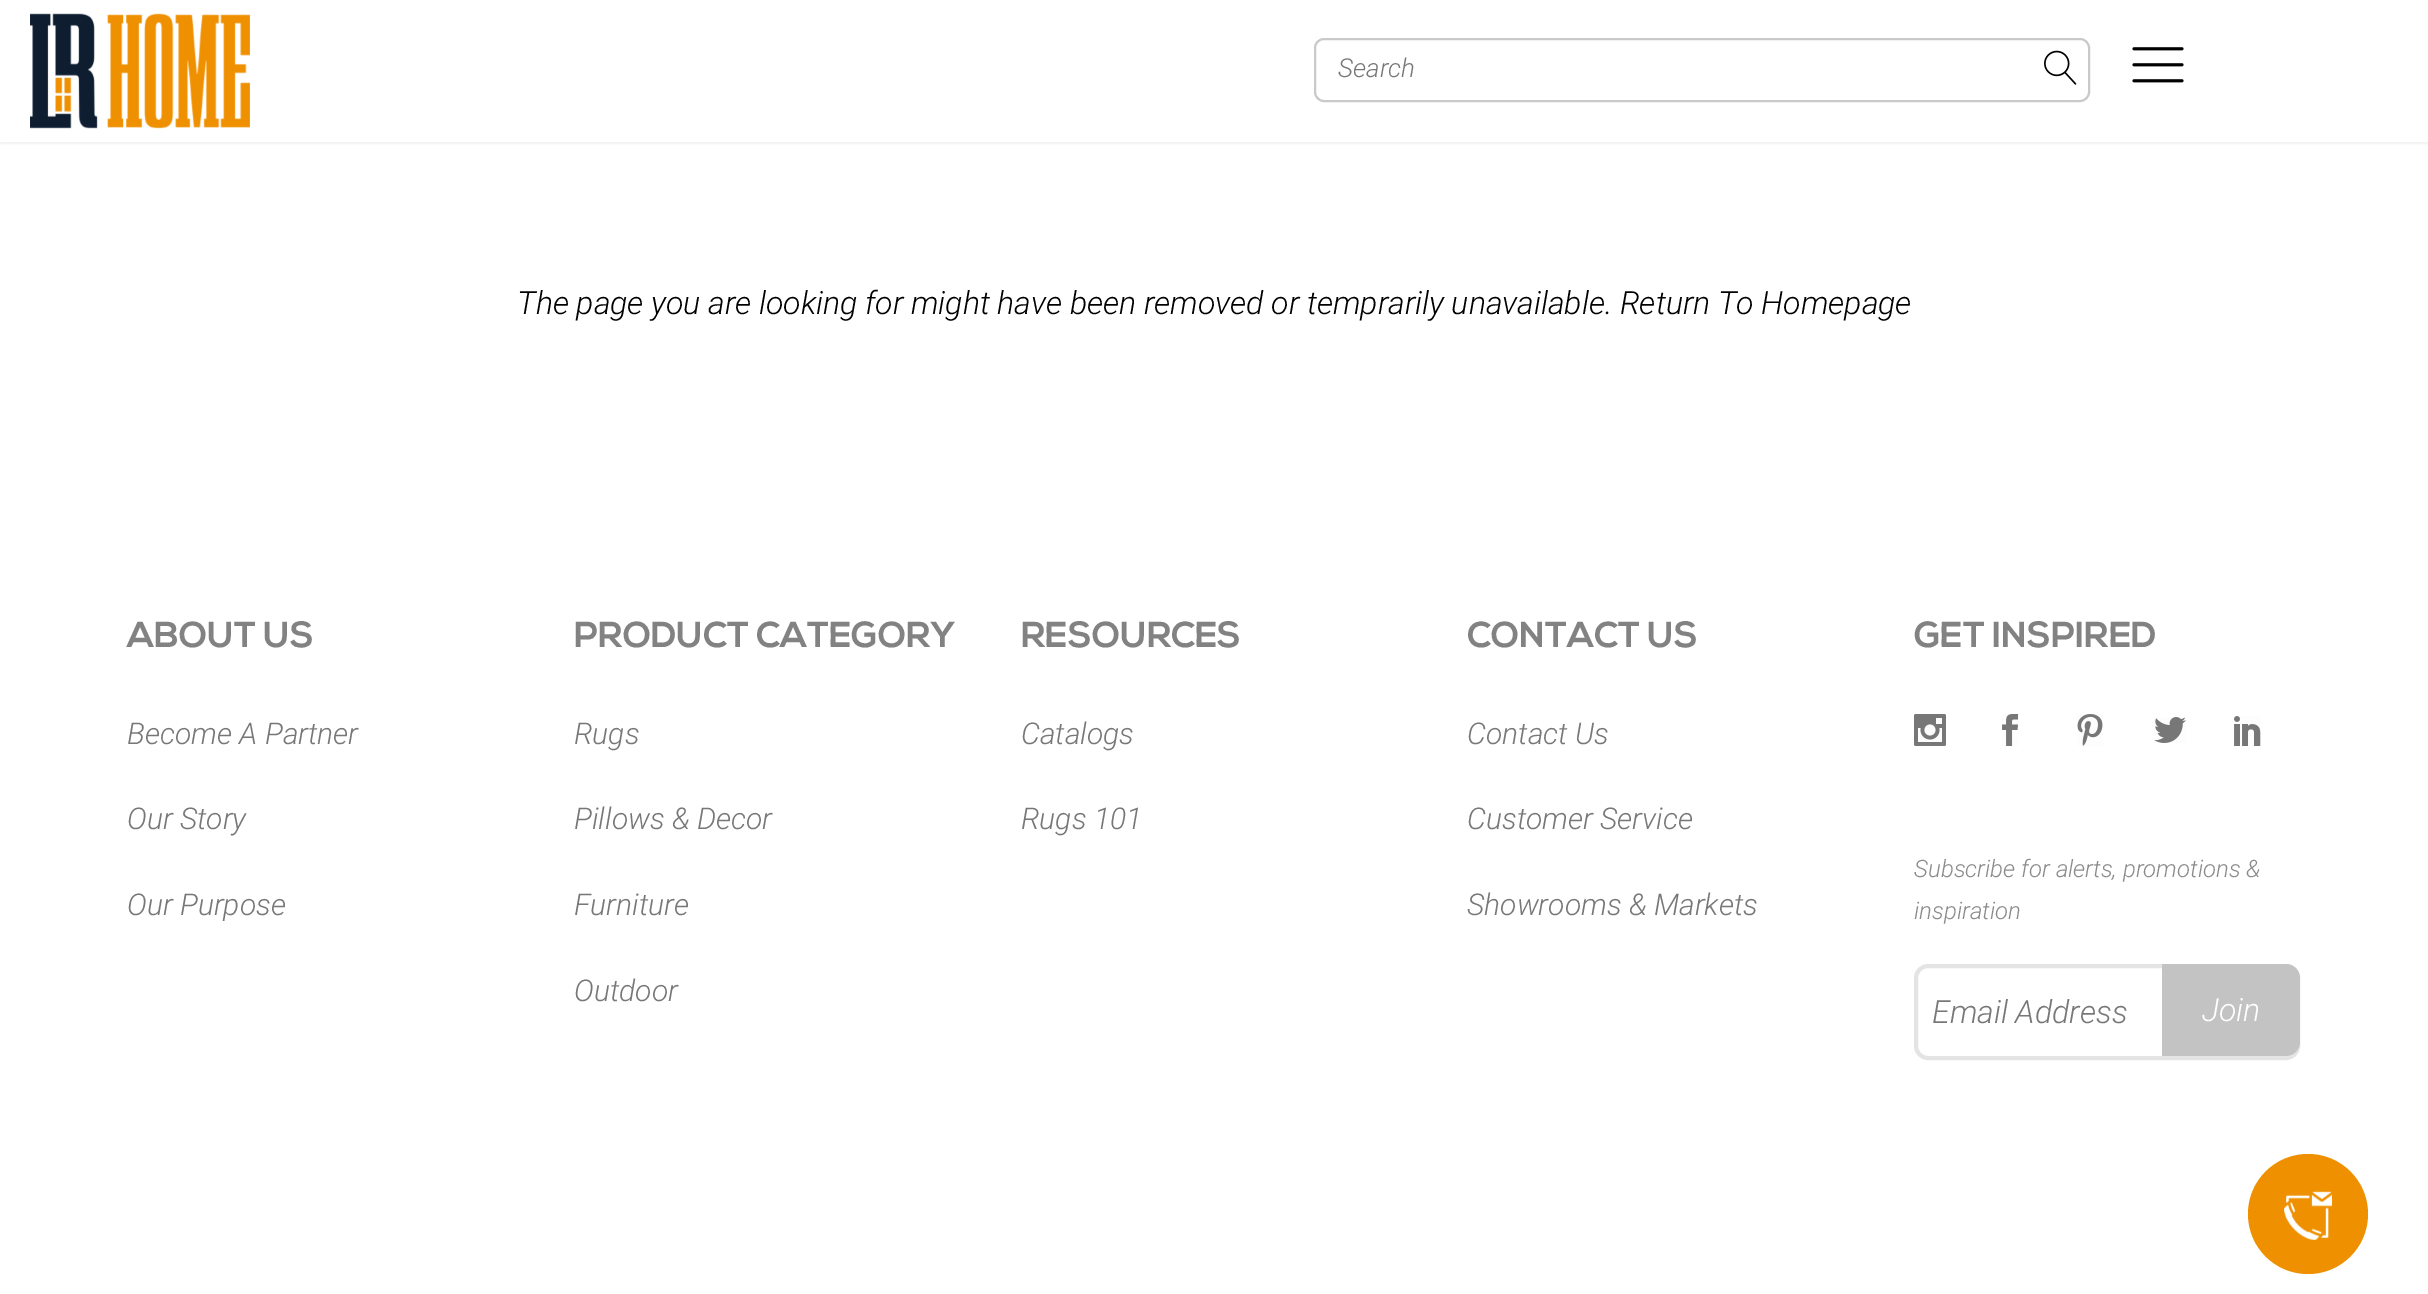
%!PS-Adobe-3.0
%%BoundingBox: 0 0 2428 1294
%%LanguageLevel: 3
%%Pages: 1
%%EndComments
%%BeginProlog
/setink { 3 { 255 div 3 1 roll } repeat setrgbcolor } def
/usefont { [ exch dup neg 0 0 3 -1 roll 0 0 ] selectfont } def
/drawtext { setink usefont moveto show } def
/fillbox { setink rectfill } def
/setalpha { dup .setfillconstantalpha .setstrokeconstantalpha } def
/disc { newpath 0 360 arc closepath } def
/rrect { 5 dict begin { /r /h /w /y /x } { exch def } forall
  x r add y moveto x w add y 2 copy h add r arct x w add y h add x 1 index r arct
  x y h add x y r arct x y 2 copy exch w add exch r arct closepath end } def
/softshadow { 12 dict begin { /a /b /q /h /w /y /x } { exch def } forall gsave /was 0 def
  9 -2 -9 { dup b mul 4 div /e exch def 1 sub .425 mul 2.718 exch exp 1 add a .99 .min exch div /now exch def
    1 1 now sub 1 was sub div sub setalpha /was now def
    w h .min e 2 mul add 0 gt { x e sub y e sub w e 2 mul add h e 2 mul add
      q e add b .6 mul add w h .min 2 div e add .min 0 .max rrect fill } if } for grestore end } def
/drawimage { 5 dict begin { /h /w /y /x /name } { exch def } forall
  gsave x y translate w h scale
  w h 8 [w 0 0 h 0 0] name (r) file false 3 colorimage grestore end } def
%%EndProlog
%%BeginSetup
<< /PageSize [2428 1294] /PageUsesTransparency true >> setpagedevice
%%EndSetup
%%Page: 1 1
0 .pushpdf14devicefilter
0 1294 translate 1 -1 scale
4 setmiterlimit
0 0 2428 1294 255 255 255 fillbox
240 240 240 setink
0 2 2428 142 0 1 1 softshadow
0 1 2428 141 255 255 255 fillbox
(assets/img1.rgb) 30 13 220 116 drawimage
201 201 201 setink
2 setlinewidth
1315 39 774 62 9 rrect stroke
(Search) 1338 77 /Roboto-LightItalic 26 119 119 119 drawtext
(assets/img2.rgb) 2044 50 33 35 drawimage
(assets/img3.rgb) 2132 47 52 36 drawimage
(The page you are looking for might have been removed or temprarily unavailable. Return To Homepage) 517 314 /Roboto-LightItalic 32 0 0 0 drawtext
(ABOUT US) 127 647 /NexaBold-Bold 36 130 130 130 drawtext
(Become A Partner) 127 744 /Roboto-LightItalic 30 119 119 119 drawtext
(Our Story) 127 829 /Roboto-LightItalic 30 119 119 119 drawtext
(Our Purpose) 127 915 /Roboto-LightItalic 30 119 119 119 drawtext
(PRODUCT CATEGORY) 574 647 /NexaBold-Bold 36 130 130 130 drawtext
(Rugs) 574 744 /Roboto-LightItalic 30 119 119 119 drawtext
(Pillows & Decor) 574 829 /Roboto-LightItalic 30 119 119 119 drawtext
(Furniture) 574 915 /Roboto-LightItalic 30 119 119 119 drawtext
(Outdoor) 574 1001 /Roboto-LightItalic 30 119 119 119 drawtext
(RESOURCES) 1021 647 /NexaBold-Bold 36 130 130 130 drawtext
(Catalogs) 1021 744 /Roboto-LightItalic 30 119 119 119 drawtext
(Rugs 101) 1021 829 /Roboto-LightItalic 30 119 119 119 drawtext
(CONTACT US) 1467 647 /NexaBold-Bold 36 130 130 130 drawtext
(Contact Us) 1467 744 /Roboto-LightItalic 30 119 119 119 drawtext
(Customer Service) 1467 829 /Roboto-LightItalic 30 119 119 119 drawtext
(Showrooms & Markets) 1467 915 /Roboto-LightItalic 30 119 119 119 drawtext
(GET INSPIRED) 1914 647 /NexaBold-Bold 36 130 130 130 drawtext
(assets/img4.rgb) 1914 714 32 32 drawimage
(assets/img5.rgb) 2002 714 17 32 drawimage
(assets/img6.rgb) 2077 714 26 32 drawimage
(assets/img7.rgb) 2154 717 32 26 drawimage
(assets/img8.rgb) 2234 716 27 30 drawimage
(Subscribe for alerts, promotions &) 1914 877 /Roboto-LightItalic 24 138 138 138 drawtext
(inspiration) 1914 919 /Roboto-LightItalic 24 138 138 138 drawtext
228 228 228 setink
4 setlinewidth
1916 966 382 92 12 rrect stroke
(Email Address) 1932 1023 /Roboto-LightItalic 32 119 119 119 drawtext
195 195 195 setink
2162 964 moveto 2286 964 lineto 2293.5 964 2300 970.5 2300 978 curveto 2300 1042 lineto 2300 1049.5 2293.5 1056 2286 1056 curveto 2162 1056 lineto closepath fill
(Join) 2202 1021 /Roboto-LightItalic 32 255 255 255 drawtext
239 144 0 setink
2308 1214 60 disc fill
(assets/img9.rgb) 2284 1191 48 49 drawimage
.poppdf14devicefilter showpage
%%EOF
